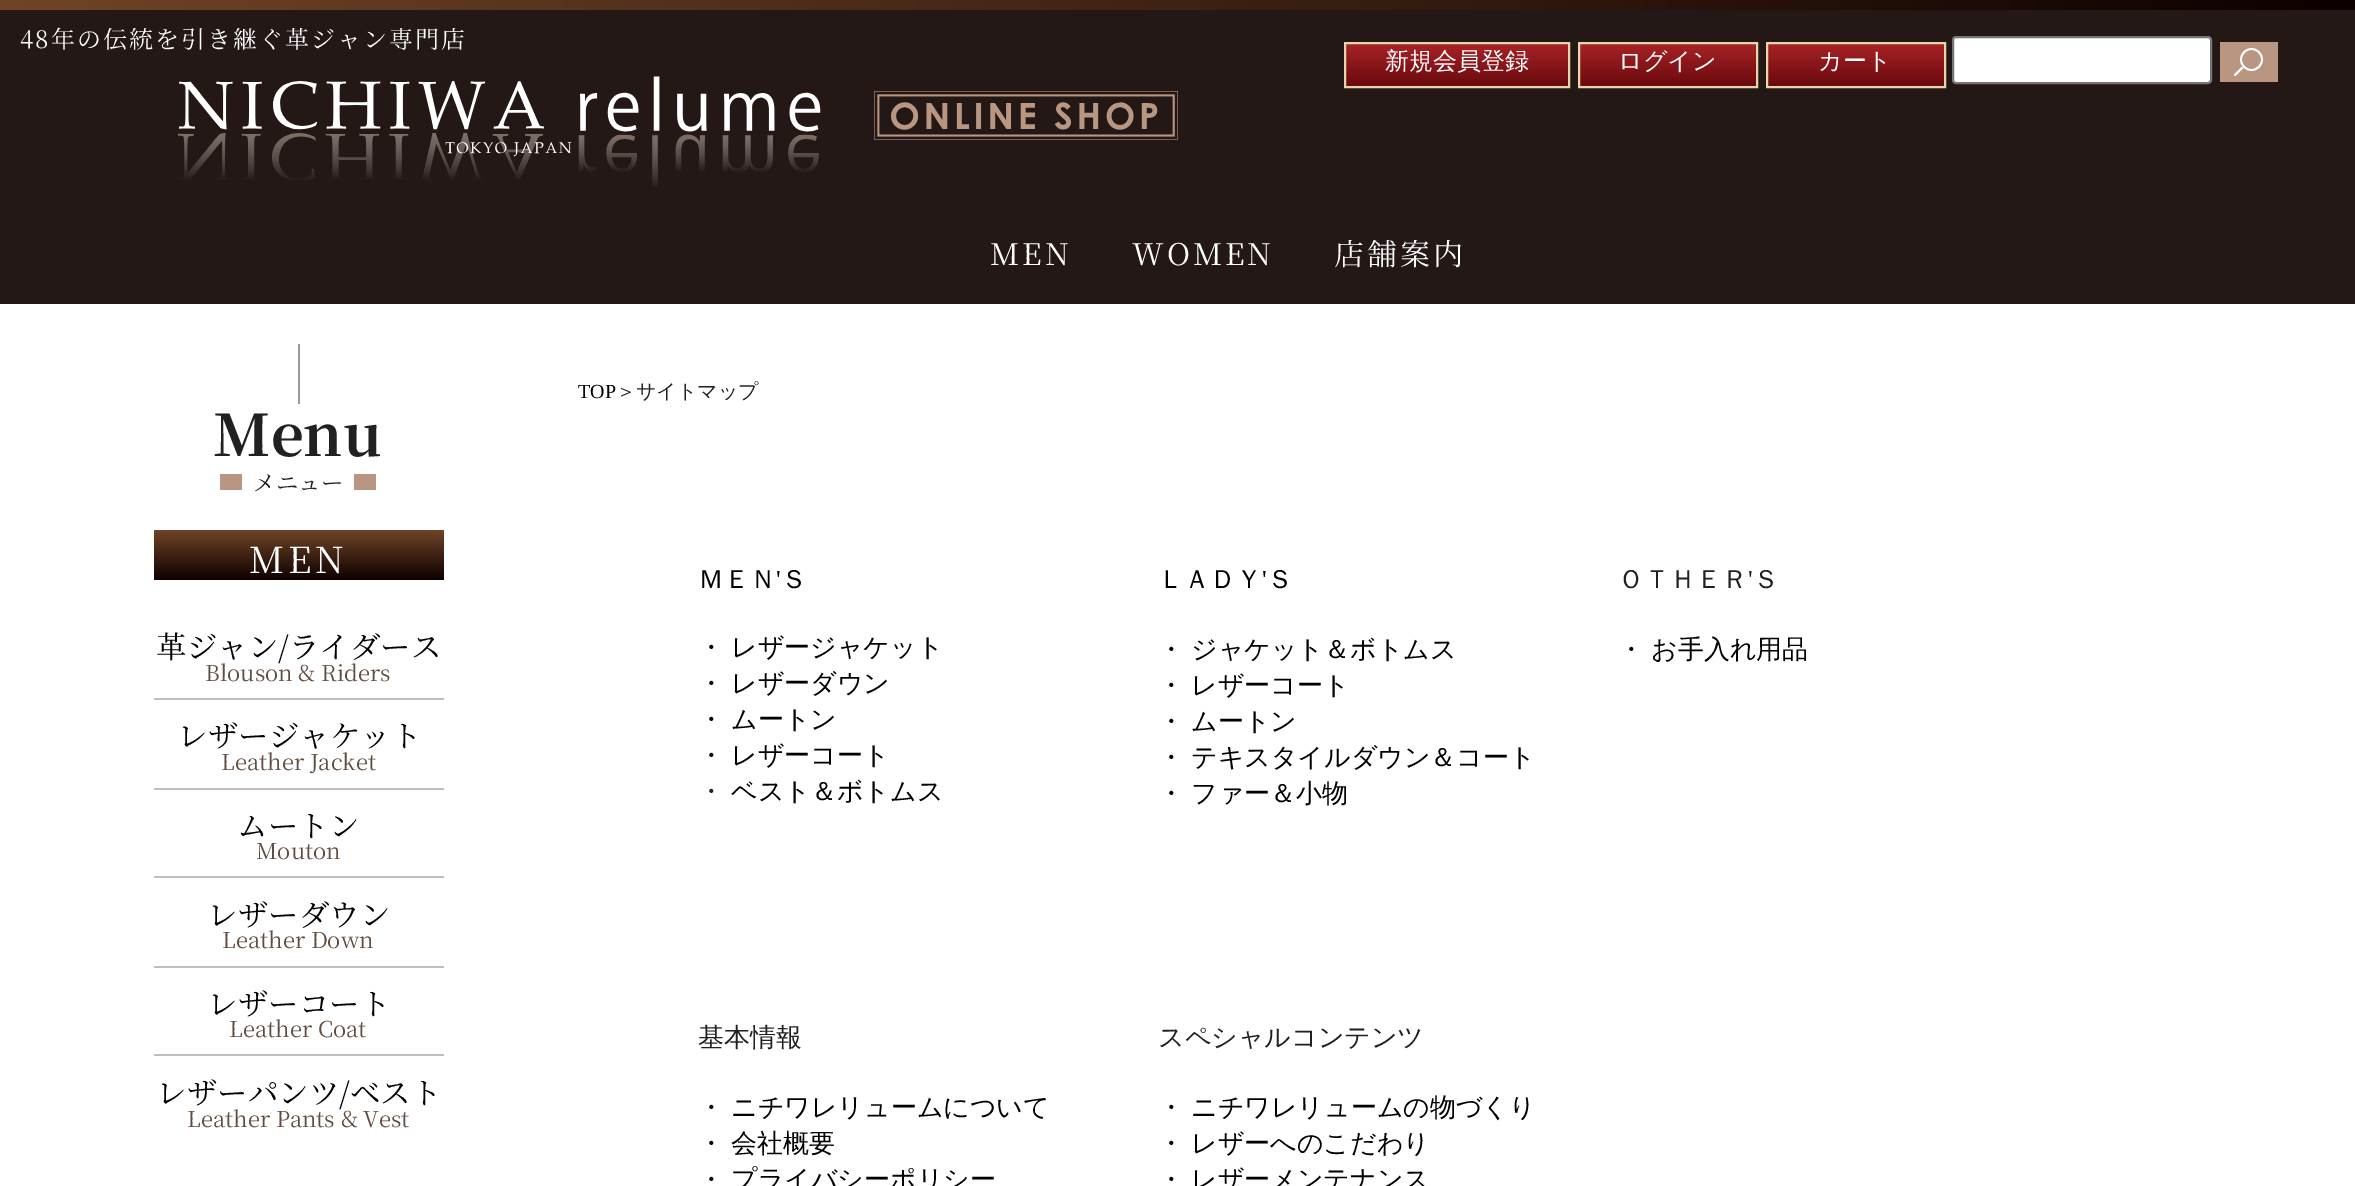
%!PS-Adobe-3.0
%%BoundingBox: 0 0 2355 1186
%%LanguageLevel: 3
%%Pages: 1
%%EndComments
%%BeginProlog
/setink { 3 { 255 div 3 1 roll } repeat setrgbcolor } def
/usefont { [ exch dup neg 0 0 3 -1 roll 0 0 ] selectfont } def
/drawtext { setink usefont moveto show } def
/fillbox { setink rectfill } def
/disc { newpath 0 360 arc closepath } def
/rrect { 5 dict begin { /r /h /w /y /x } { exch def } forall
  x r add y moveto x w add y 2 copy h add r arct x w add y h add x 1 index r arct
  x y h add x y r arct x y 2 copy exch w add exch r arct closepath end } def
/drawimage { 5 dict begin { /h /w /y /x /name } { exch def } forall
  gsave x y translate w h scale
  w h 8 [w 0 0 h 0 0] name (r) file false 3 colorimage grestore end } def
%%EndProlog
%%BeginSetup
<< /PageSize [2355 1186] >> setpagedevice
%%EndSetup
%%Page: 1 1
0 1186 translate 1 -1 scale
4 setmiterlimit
0 0 2355 1186 35 24 21 fillbox
/NotoSerifJP-Regular 24 usefont
255 255 255 setink
20 48 moveto 2 0 (48年の伝統を引き継ぐ革ジャン専門店) ashow
gsave 0 0 moveto 2355 0 lineto 2355 10 lineto 0 10 lineto closepath clip newpath
<< /ShadingType 2 /ColorSpace /DeviceRGB /Coords [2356 5 0 5] /Extend [true true] /Function << /FunctionType 2 /Domain [0 1] /C0 [0.047 0 0] /C1 [0.439 0.267 0.149] /N 1 >> >> shfill grestore
gsave 1346 44 moveto 1568 44 lineto 1568 86 lineto 1346 86 lineto closepath clip newpath
<< /ShadingType 2 /ColorSpace /DeviceRGB /Coords [1457 44 1457 86] /Extend [true true] /Function << /FunctionType 2 /Domain [0 1] /C0 [0.655 0.137 0.149] /C1 [0.416 0.035 0.055] /N 1 >> >> shfill grestore
232 213 171 setink
2 setlinewidth
1345 43 224 44 rectstroke
(新規会員登録) 1385 69 /WenQuanYiZenHei-Medium 24 255 255 255 drawtext
gsave 1580 44 moveto 1756 44 lineto 1756 86 lineto 1580 86 lineto closepath clip newpath
<< /ShadingType 2 /ColorSpace /DeviceRGB /Coords [1668 44 1668 86] /Extend [true true] /Function << /FunctionType 2 /Domain [0 1] /C0 [0.655 0.137 0.149] /C1 [0.416 0.035 0.055] /N 1 >> >> shfill grestore
232 213 171 setink
1579 43 178 44 rectstroke
(ログイン) 1618 69 /WenQuanYiZenHei-Medium 24 255 255 255 drawtext
gsave 1768 44 moveto 1944 44 lineto 1944 86 lineto 1768 86 lineto closepath clip newpath
<< /ShadingType 2 /ColorSpace /DeviceRGB /Coords [1856 44 1856 86] /Extend [true true] /Function << /FunctionType 2 /Domain [0 1] /C0 [0.655 0.137 0.149] /C1 [0.416 0.035 0.055] /N 1 >> >> shfill grestore
232 213 171 setink
1767 43 178 44 rectstroke
(カート) 1818 69 /WenQuanYiZenHei-Medium 24 255 255 255 drawtext
1953 37 258 46 3 rrect gsave fill grestore
118 118 118 setink
stroke
2220 42 58 40 185 150 129 fillbox
255 255 255 setink
1.8 setlinewidth
2251.5 59.5 10.5 disc stroke
2242.5 67.5 moveto 2234.5 75.5 lineto stroke
(assets/img1.rgb) 178 76 1000 111 drawimage
/NotoSerifJP-Regular 30 usefont
990 265 moveto 3 0 (MEN) ashow
1132 265 moveto 3 0 (WOMEN) ashow
1334 265 moveto 3 0 (店舗案内) ashow
0 304 2355 882 255 255 255 fillbox
298 344 2 60 153 153 153 fillbox
(Menu) 213 456 /NotoSerifJP-Bold 57.5 33 33 33 drawtext
220 474 22 16 185 150 129 fillbox
(メニュー) 253 491 /NotoSerifJP-Regular 22.5 33 33 33 drawtext
354 474 22 16 185 150 129 fillbox
gsave 154 530 moveto 444 530 lineto 444 580 lineto 154 580 lineto closepath clip newpath
<< /ShadingType 2 /ColorSpace /DeviceRGB /Coords [299 530 299 580] /Extend [true true] /Function << /FunctionType 2 /Domain [0 1] /C0 [0.439 0.267 0.149] /C1 [0.047 0 0] /N 1 >> >> shfill grestore
/NotoSerifJP-Regular 36 usefont
255 255 255 setink
249 573 moveto 3.5 0 (MEN) ashow
154 698 290 2 191 191 191 fillbox
(革ジャン/ライダース) 156 658 /NotoSerifJP-Regular 30.5 0 0 0 drawtext
(Blouson & Riders) 205 681 /NotoSerifJP-Regular 22 96 76 63 drawtext
154 788 290 2 191 191 191 fillbox
(レザージャケット) 177 747 /NotoSerifJP-Regular 30.5 0 0 0 drawtext
(Leather Jacket) 221 770 /NotoSerifJP-Regular 22 96 76 63 drawtext
154 876 290 2 191 191 191 fillbox
(ムートン) 237 837 /NotoSerifJP-Regular 30.5 0 0 0 drawtext
(Mouton) 256 859 /NotoSerifJP-Regular 22 96 76 63 drawtext
154 966 290 2 191 191 191 fillbox
(レザーダウン) 207 926 /NotoSerifJP-Regular 30.5 0 0 0 drawtext
(Leather Down) 222 948 /NotoSerifJP-Regular 22 96 76 63 drawtext
154 1054 290 2 191 191 191 fillbox
(レザーコート) 207 1015 /NotoSerifJP-Regular 30.5 0 0 0 drawtext
(Leather Coat) 229 1037 /NotoSerifJP-Regular 22 96 76 63 drawtext
(レザーパンツ/ベスト) 156 1104 /NotoSerifJP-Regular 30.5 0 0 0 drawtext
(Leather Pants & Vest) 187 1127 /NotoSerifJP-Regular 22 96 76 63 drawtext
(TOP) 578 398 /LiberationSerif-Regular 20 0 0 0 drawtext
(＞サイトマップ) 616 398 /WenQuanYiZenHei-Medium 20 33 33 33 drawtext
(ＭＥＮ) 698 588 /WenQuanYiZenHei-Medium 26 0 0 0 drawtext
(') 776 588 /LiberationSerif-Regular 26 0 0 0 drawtext
(Ｓ) 781 588 /WenQuanYiZenHei-Medium 26 0 0 0 drawtext
(・) 698 656 /WenQuanYiZenHei-Medium 26 0 0 0 drawtext
(レザージャケット) 731 656 /WenQuanYiZenHei-Medium 26 0 0 0 drawtext
(・) 698 692 /WenQuanYiZenHei-Medium 26 0 0 0 drawtext
(レザーダウン) 731 692 /WenQuanYiZenHei-Medium 26 0 0 0 drawtext
(・) 698 728 /WenQuanYiZenHei-Medium 26 0 0 0 drawtext
(ムートン) 731 728 /WenQuanYiZenHei-Medium 26 0 0 0 drawtext
(・) 698 764 /WenQuanYiZenHei-Medium 26 0 0 0 drawtext
(レザーコート) 731 764 /WenQuanYiZenHei-Medium 26 0 0 0 drawtext
(・) 698 800 /WenQuanYiZenHei-Medium 26 33 33 33 drawtext
(ベスト＆ボトムス) 731 800 /WenQuanYiZenHei-Medium 26 0 0 0 drawtext
(ＬＡＤＹ) 1158 588 /WenQuanYiZenHei-Medium 26 0 0 0 drawtext
(') 1262 588 /LiberationSerif-Regular 26 0 0 0 drawtext
(Ｓ) 1267 588 /WenQuanYiZenHei-Medium 26 0 0 0 drawtext
(・) 1158 658 /WenQuanYiZenHei-Medium 26 0 0 0 drawtext
(ジャケット＆ボトムス) 1191 658 /WenQuanYiZenHei-Medium 26 0 0 0 drawtext
(・) 1158 694 /WenQuanYiZenHei-Medium 26 0 0 0 drawtext
(レザーコート) 1191 694 /WenQuanYiZenHei-Medium 26 0 0 0 drawtext
(・) 1158 730 /WenQuanYiZenHei-Medium 26 0 0 0 drawtext
(ムートン) 1191 730 /WenQuanYiZenHei-Medium 26 0 0 0 drawtext
(・) 1158 766 /WenQuanYiZenHei-Medium 26 0 0 0 drawtext
(テキスタイルダウン＆コート) 1191 766 /WenQuanYiZenHei-Medium 26 0 0 0 drawtext
(・) 1158 802 /WenQuanYiZenHei-Medium 26 0 0 0 drawtext
(ファー＆小物) 1191 802 /WenQuanYiZenHei-Medium 26 0 0 0 drawtext
(ＯＴＨＥＲ) 1618 588 /WenQuanYiZenHei-Medium 26 33 33 33 drawtext
(') 1748 588 /LiberationSerif-Regular 26 33 33 33 drawtext
(Ｓ) 1753 588 /WenQuanYiZenHei-Medium 26 33 33 33 drawtext
(・) 1618 658 /WenQuanYiZenHei-Medium 26 0 0 0 drawtext
(お手入れ用品) 1651 658 /WenQuanYiZenHei-Medium 26 0 0 0 drawtext
(基本情報) 698 1046 /WenQuanYiZenHei-Medium 26 33 33 33 drawtext
(・) 698 1116 /WenQuanYiZenHei-Medium 26 0 0 0 drawtext
(ニチワレリュームについて) 731 1116 /WenQuanYiZenHei-Medium 26 0 0 0 drawtext
(・) 698 1152 /WenQuanYiZenHei-Medium 26 0 0 0 drawtext
(会社概要) 731 1152 /WenQuanYiZenHei-Medium 26 0 0 0 drawtext
(・) 698 1188 /WenQuanYiZenHei-Medium 26 0 0 0 drawtext
(プライバシーポリシー) 731 1188 /WenQuanYiZenHei-Medium 26 0 0 0 drawtext
(スペシャルコンテンツ) 1158 1046 /WenQuanYiZenHei-Medium 26 33 33 33 drawtext
(・) 1158 1116 /WenQuanYiZenHei-Medium 26 0 0 0 drawtext
(ニチワレリュームの物づくり) 1191 1116 /WenQuanYiZenHei-Medium 26 0 0 0 drawtext
(・) 1158 1152 /WenQuanYiZenHei-Medium 26 0 0 0 drawtext
(レザーへのこだわり) 1191 1152 /WenQuanYiZenHei-Medium 26 0 0 0 drawtext
(・) 1158 1188 /WenQuanYiZenHei-Medium 26 0 0 0 drawtext
(レザーメンテナンス) 1191 1188 /WenQuanYiZenHei-Medium 26 0 0 0 drawtext
showpage
%%EOF
